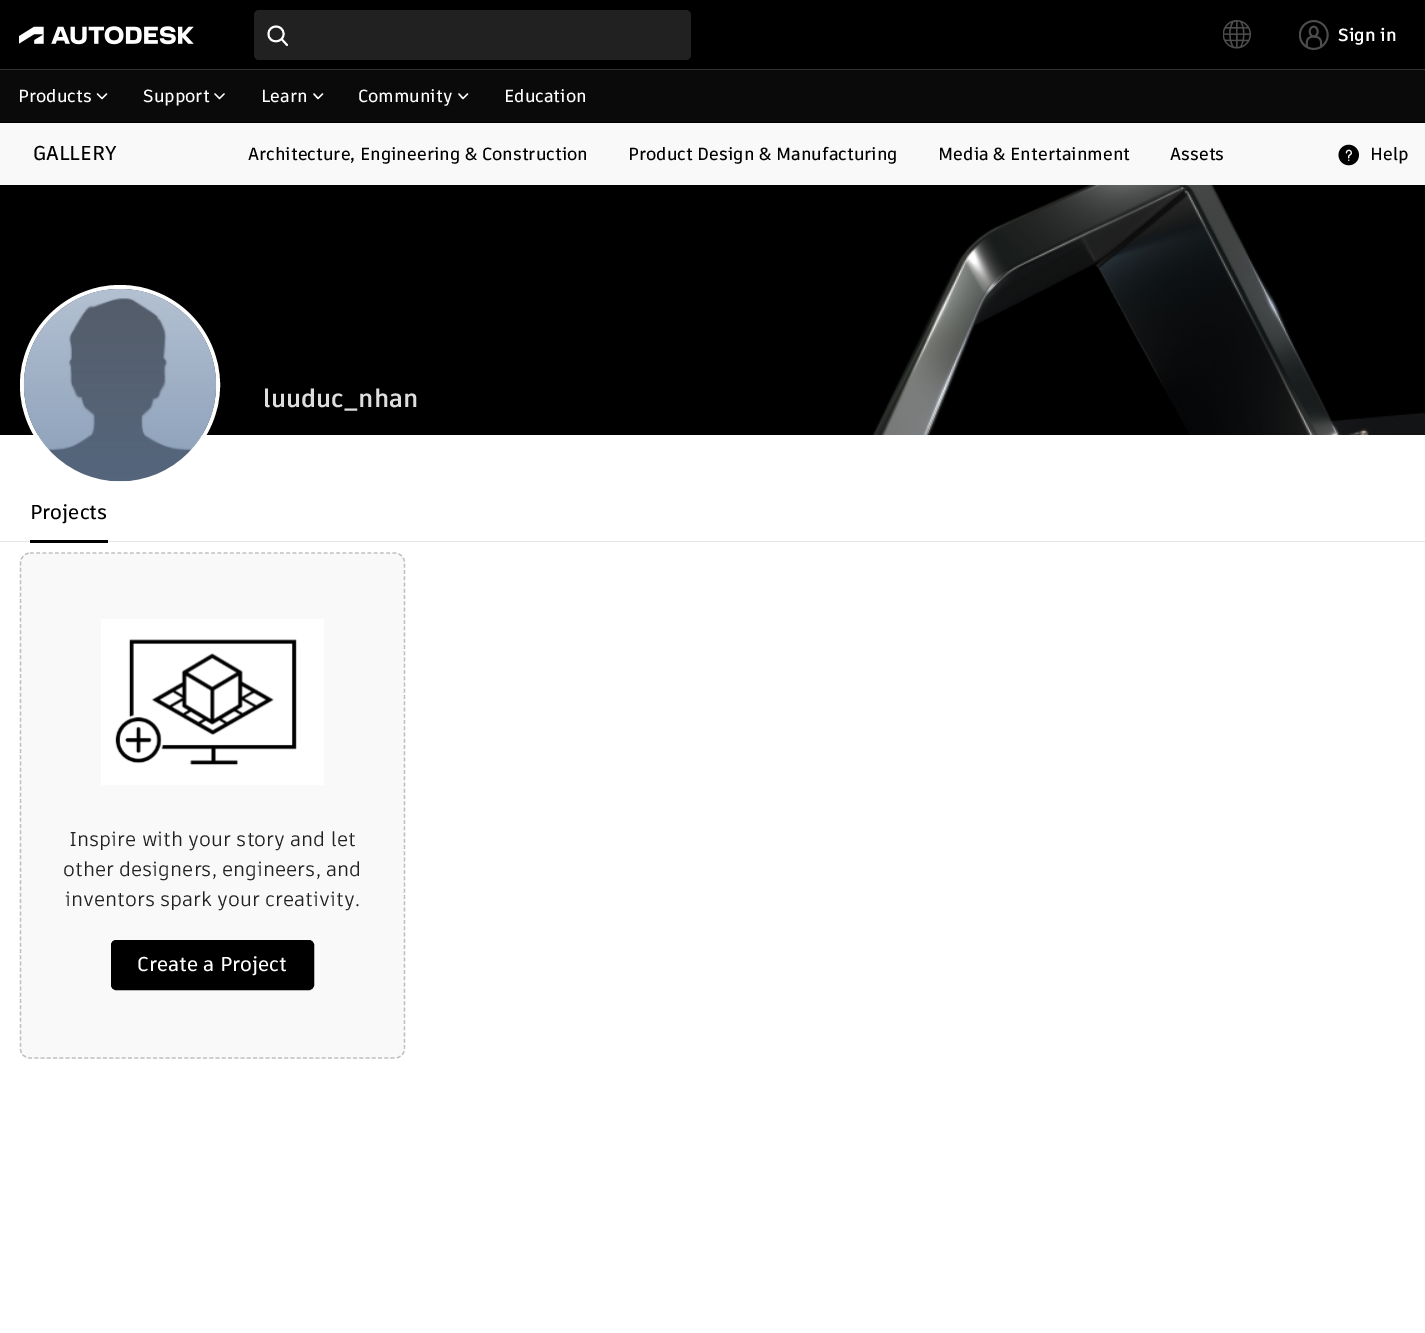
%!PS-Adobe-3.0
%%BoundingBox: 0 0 1425 1333
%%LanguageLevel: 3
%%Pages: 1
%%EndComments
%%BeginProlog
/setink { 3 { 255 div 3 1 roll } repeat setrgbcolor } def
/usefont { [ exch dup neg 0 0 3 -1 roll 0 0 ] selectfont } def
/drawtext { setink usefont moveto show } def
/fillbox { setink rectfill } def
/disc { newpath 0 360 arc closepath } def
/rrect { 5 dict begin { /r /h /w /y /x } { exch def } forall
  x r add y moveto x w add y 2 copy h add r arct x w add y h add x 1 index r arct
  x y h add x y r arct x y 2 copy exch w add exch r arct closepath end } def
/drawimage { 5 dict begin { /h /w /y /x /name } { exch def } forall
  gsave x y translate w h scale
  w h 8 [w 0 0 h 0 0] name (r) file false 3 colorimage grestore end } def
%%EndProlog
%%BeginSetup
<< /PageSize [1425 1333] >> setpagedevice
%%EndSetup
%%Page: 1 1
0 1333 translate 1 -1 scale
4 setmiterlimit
0 0 1425 1333 255 255 255 fillbox
0 0 1425 123 0 0 0 fillbox
0 70 1425 52 10 10 10 fillbox
(assets/img1.rgb) 19 26 175 19 drawimage
33 33 33 setink
254 10 437 50 5 rrect fill
255 255 255 setink
1.9 setlinewidth
1 setlinecap
281.5 39 moveto 287 45 lineto 283.5 34 moveto 283.5 43.5 268.5 44 268.5 34 curveto 268.5 24 283.5 24 283.5 34 curveto closepath stroke
(assets/img2.rgb) 1223 20 28 29 drawimage
(assets/img3.rgb) 1299 20 30 30 drawimage
(Sign in) 1338 41 /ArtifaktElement-Bold 17.5 255 255 255 drawtext
0 69 1425 1 51 51 51 fillbox
(Products) 18 102 /ArtifaktElement-SemiBold 17.5 255 255 255 drawtext
1.4 setlinewidth
1 setlinejoin
106.5 94 moveto 102 98.5 lineto 97.5 94 lineto stroke
(Support) 143 102 /ArtifaktElement-SemiBold 17.5 255 255 255 drawtext
224 94 moveto 219.5 98.5 lineto 215 94 lineto stroke
(Learn) 261 102 /ArtifaktElement-SemiBold 17.5 255 255 255 drawtext
322.5 94 moveto 318 98.5 lineto 314 94 lineto stroke
(Community) 358 102 /ArtifaktElement-SemiBold 17.5 255 255 255 drawtext
467.5 94 moveto 463 98.5 lineto 459 94 lineto stroke
(Education) 504 102 /ArtifaktElement-SemiBold 17.5 255 255 255 drawtext
0 123 1425 62 249 249 249 fillbox
(GALLERY) 33 160 /ArtifaktElement-SemiBold 20 0 0 0 drawtext
(Architecture, Engineering & Construction) 248 160 /ArtifaktElement-SemiBold 17.5 0 0 0 drawtext
(Product Design & Manufacturing) 628 160 /ArtifaktElement-SemiBold 17.5 0 0 0 drawtext
(Media & Entertainment) 938 160 /ArtifaktElement-SemiBold 17.5 0 0 0 drawtext
(Assets) 1170 160 /ArtifaktElement-SemiBold 17.5 0 0 0 drawtext
(assets/img4.rgb) 1338 144 21 22 drawimage
(Help) 1370 160 /ArtifaktElement-SemiBold 17.5 0 0 0 drawtext
0 185 872 250 0 0 0 fillbox
255 255 255 setink
4 setlinewidth
0 setlinecap
0 setlinejoin
120 385 98 disc stroke
(assets/img5.rgb) 23 289 194 193 drawimage
(luuduc_nhan) 263 407 /ArtifaktElement-Bold 25 222 222 222 drawtext
(assets/img6.rgb) 872 185 553 250 drawimage
0 541 1425 1 230 230 230 fillbox
30 540 78 3 0 0 0 fillbox
(Projects) 30 519 /ArtifaktElement-SemiBold 20 0 0 0 drawtext
249 249 249 setink
20 553 385 506 10 rrect fill
191 191 191 setink
1.2 setlinewidth
[3.75 2.5] 0 setdash
30 553 moveto 395 553 lineto 400 553 404.5 557.5 404.5 562.5 curveto 404.5 1049 lineto 404.5 1054 400 1058 395 1058 curveto 30 1058 lineto 25 1058 20.5 1054 20.5 1049 curveto 20.5 562.5 lineto 20.5 557.5 25 553 30 553 curveto closepath stroke
(assets/img7.rgb) 101 619 223 166 drawimage
(Inspire with your story and let) 69 846 /ArtifaktElement-Regular 20 33 33 33 drawtext
(other designers, engineers, and) 63 876 /ArtifaktElement-Regular 20 33 33 33 drawtext
(inventors spark your creativity.) 65 906 /ArtifaktElement-Regular 20 33 33 33 drawtext
0 0 0 setink
111.5 940.5 202 49 4.5 rrect gsave fill grestore
1 setlinewidth
[] 0 setdash
stroke
(Create a Project) 137 971 /ArtifaktElement-SemiBold 20 255 255 255 drawtext
showpage
%%EOF
